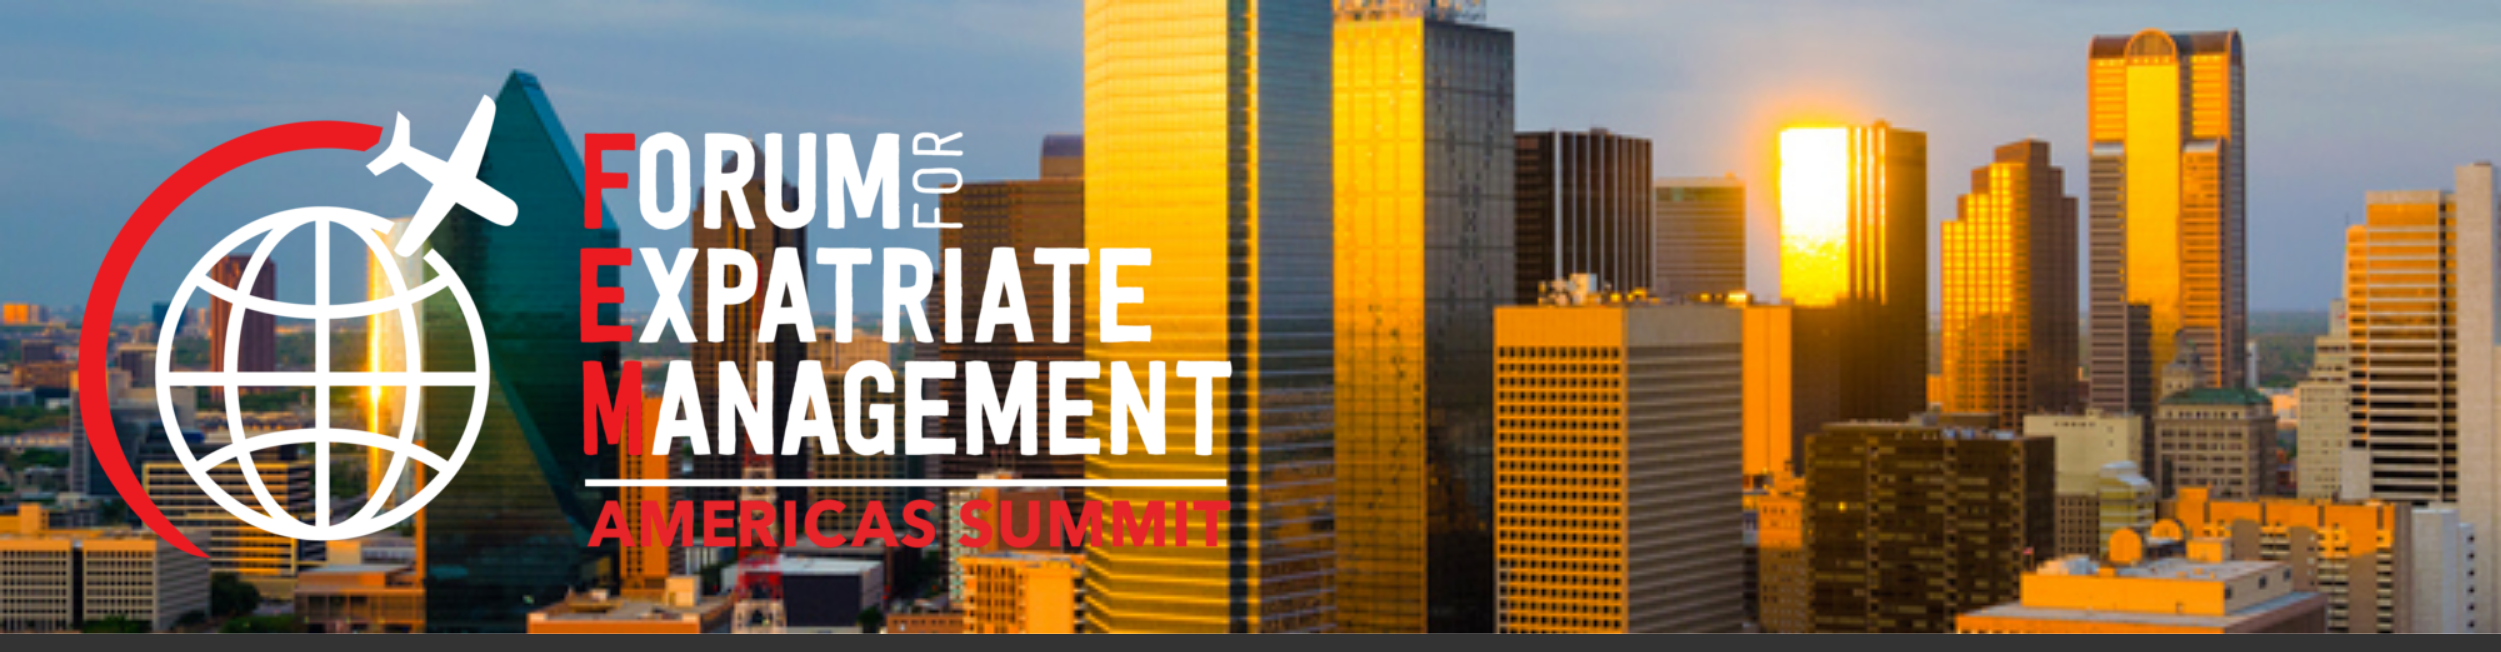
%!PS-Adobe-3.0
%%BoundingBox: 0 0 2501 652
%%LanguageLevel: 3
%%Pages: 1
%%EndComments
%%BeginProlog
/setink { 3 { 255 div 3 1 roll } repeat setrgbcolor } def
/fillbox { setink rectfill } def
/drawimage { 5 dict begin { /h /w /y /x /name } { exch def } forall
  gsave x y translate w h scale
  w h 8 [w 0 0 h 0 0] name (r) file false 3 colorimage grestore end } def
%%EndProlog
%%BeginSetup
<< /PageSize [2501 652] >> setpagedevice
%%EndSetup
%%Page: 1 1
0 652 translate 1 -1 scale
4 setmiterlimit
0 0 2501 652 255 255 255 fillbox
(assets/img1.rgb) 0 0 2501 634 drawimage
(assets/img2.rgb) 77 93 1156 466 drawimage
0 634 2501 18 51 51 51 fillbox
showpage
%%EOF
